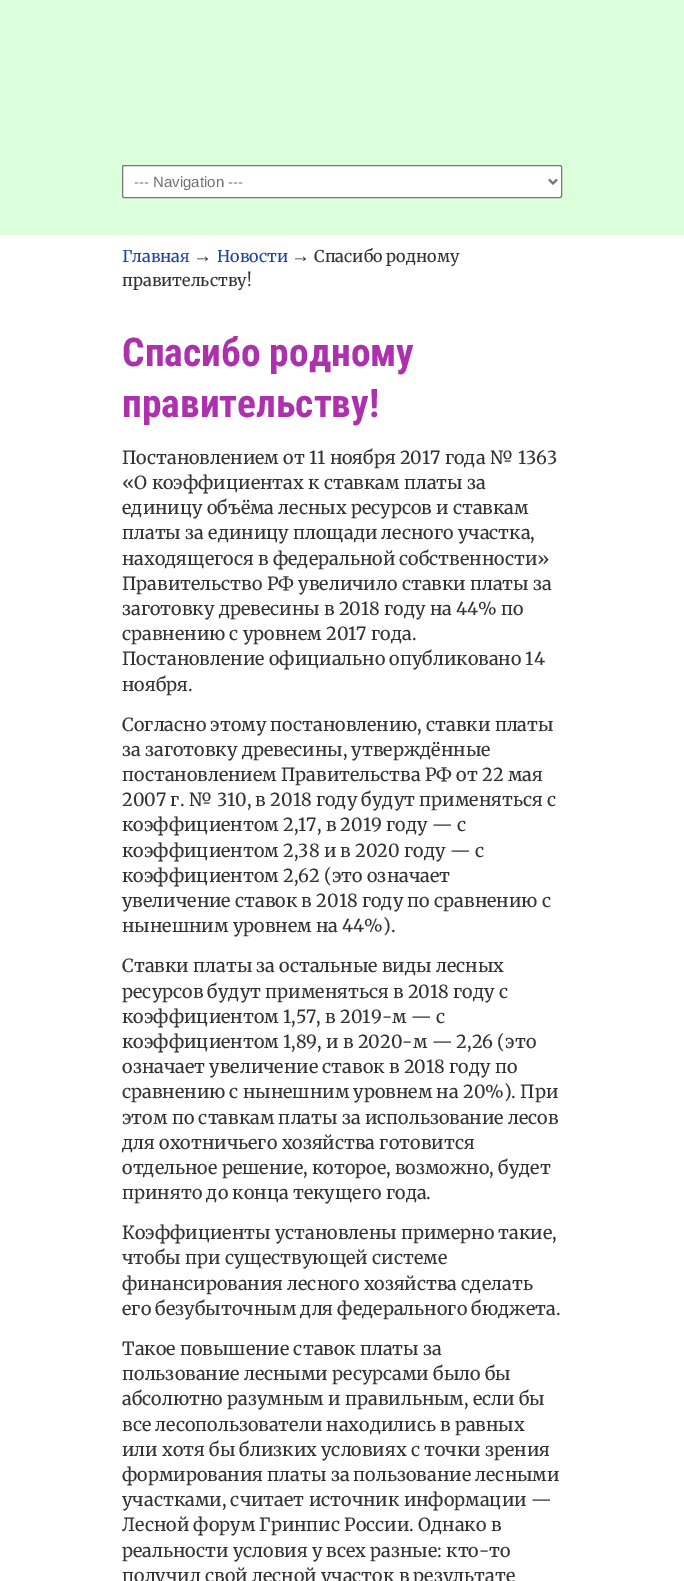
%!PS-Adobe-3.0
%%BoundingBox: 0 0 684 1581
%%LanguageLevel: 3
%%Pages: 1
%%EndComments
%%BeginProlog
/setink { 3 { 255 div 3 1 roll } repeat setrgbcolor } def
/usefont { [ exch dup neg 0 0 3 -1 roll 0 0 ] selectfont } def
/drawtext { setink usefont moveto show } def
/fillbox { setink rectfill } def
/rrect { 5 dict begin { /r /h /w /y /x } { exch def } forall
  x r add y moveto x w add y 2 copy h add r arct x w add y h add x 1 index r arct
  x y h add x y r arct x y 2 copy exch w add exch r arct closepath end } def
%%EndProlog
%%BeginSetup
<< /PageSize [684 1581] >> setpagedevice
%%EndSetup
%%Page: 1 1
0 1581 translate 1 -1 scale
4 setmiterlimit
0 0 684 1581 255 255 255 fillbox
0 0 684 235 219 254 219 fillbox
255 255 255 setink
122.5 165.5 439 32 1.5 rrect gsave fill grestore
118 118 118 setink
stroke
113 113 113 setink
2 setlinewidth
549 179.5 moveto 553 183.5 lineto 557 179.5 lineto stroke
(--- Navigation ---) 134 187 /LiberationSans-Regular 15 113 113 113 drawtext
(Главная) 122 262 /Merriweather-Light 16.25 31 68 163 drawtext
(→) 193 262 /LiberationSerif-Regular 19 51 51 51 drawtext
(Новости) 217 262 /Merriweather-Light 16.25 31 68 163 drawtext
(→) 291 262 /LiberationSerif-Regular 19 51 51 51 drawtext
(Спасибо родному) 314 262 /Merriweather-Light 16.25 51 51 51 drawtext
(правительству!) 122 286 /Merriweather-Light 16.25 51 51 51 drawtext
(Спасибо родному) 122 366 /RobotoCondensed-Bold 39.5 173 48 173 drawtext
(правительству!) 122 417 /RobotoCondensed-Bold 39.5 173 48 173 drawtext
(Постановлением от 11 ноября 2017 года № 1363) 122 464 /Merriweather-Light 18 51 51 51 drawtext
(«О коэффициентах к ставкам платы за) 122 489 /Merriweather-Light 18 51 51 51 drawtext
(единицу объёма лесных ресурсов и ставкам) 122 514 /Merriweather-Light 18 51 51 51 drawtext
(платы за единицу площади лесного участка,) 122 539 /Merriweather-Light 18 51 51 51 drawtext
(находящегося в федеральной собственности») 122 565 /Merriweather-Light 18 51 51 51 drawtext
(Правительство РФ увеличило ставки платы за) 122 590 /Merriweather-Light 18 51 51 51 drawtext
(заготовку древесины в 2018 году на 44% по) 122 615 /Merriweather-Light 18 51 51 51 drawtext
(сравнению с уровнем 2017 года.) 122 640 /Merriweather-Light 18 51 51 51 drawtext
(Постановление официально опубликовано 14) 122 665 /Merriweather-Light 18 51 51 51 drawtext
(ноября.) 122 691 /Merriweather-Light 18 51 51 51 drawtext
(Согласно этому постановлению, ставки платы) 122 731 /Merriweather-Light 18 51 51 51 drawtext
(за заготовку древесины, утверждённые) 122 756 /Merriweather-Light 18 51 51 51 drawtext
(постановлением Правительства РФ от 22 мая) 122 781 /Merriweather-Light 18 51 51 51 drawtext
(2007 г. № 310, в 2018 году будут применяться с) 122 806 /Merriweather-Light 18 51 51 51 drawtext
(коэффициентом 2,17, в 2019 году — с) 122 831 /Merriweather-Light 18 51 51 51 drawtext
(коэффициентом 2,38 и в 2020 году — с) 122 857 /Merriweather-Light 18 51 51 51 drawtext
(коэффициентом 2,62 \(это означает) 122 882 /Merriweather-Light 18 51 51 51 drawtext
(увеличение ставок в 2018 году по сравнению с) 122 907 /Merriweather-Light 18 51 51 51 drawtext
(нынешним уровнем на 44%\).) 122 932 /Merriweather-Light 18 51 51 51 drawtext
(Ставки платы за остальные виды лесных) 122 972 /Merriweather-Light 18 51 51 51 drawtext
(ресурсов будут применяться в 2018 году с) 122 998 /Merriweather-Light 18 51 51 51 drawtext
(коэффициентом 1,57, в 2019-м — с) 122 1023 /Merriweather-Light 18 51 51 51 drawtext
(коэффициентом 1,89, и в 2020-м — 2,26 \(это) 122 1048 /Merriweather-Light 18 51 51 51 drawtext
(означает увеличение ставок в 2018 году по) 122 1073 /Merriweather-Light 18 51 51 51 drawtext
(сравнению с нынешним уровнем на 20%\). При) 122 1098 /Merriweather-Light 18 51 51 51 drawtext
(этом по ставкам платы за использование лесов) 122 1124 /Merriweather-Light 18 51 51 51 drawtext
(для охотничьего хозяйства готовится) 122 1149 /Merriweather-Light 18 51 51 51 drawtext
(отдельное решение, которое, возможно, будет) 122 1174 /Merriweather-Light 18 51 51 51 drawtext
(принято до конца текущего года.) 122 1199 /Merriweather-Light 18 51 51 51 drawtext
(Коэффициенты установлены примерно такие,) 122 1239 /Merriweather-Light 18 51 51 51 drawtext
(чтобы при существующей системе) 122 1264 /Merriweather-Light 18 51 51 51 drawtext
(финансирования лесного хозяйства сделать) 122 1290 /Merriweather-Light 18 51 51 51 drawtext
(его безубыточным для федерального бюджета.) 122 1315 /Merriweather-Light 18 51 51 51 drawtext
(Такое повышение ставок платы за) 122 1355 /Merriweather-Light 18 51 51 51 drawtext
(пользование лесными ресурсами было бы) 122 1380 /Merriweather-Light 18 51 51 51 drawtext
(абсолютно разумным и правильным, если бы) 122 1405 /Merriweather-Light 18 51 51 51 drawtext
(все лесопользователи находились в равных) 122 1431 /Merriweather-Light 18 51 51 51 drawtext
(или хотя бы близких условиях с точки зрения) 122 1456 /Merriweather-Light 18 51 51 51 drawtext
(формирования платы за пользование лесными) 122 1481 /Merriweather-Light 18 51 51 51 drawtext
(участками, считает источник информации —) 122 1506 /Merriweather-Light 18 51 51 51 drawtext
(Лесной форум Гринпис России. Однако в) 122 1531 /Merriweather-Light 18 51 51 51 drawtext
(реальности условия у всех разные: кто-то) 122 1557 /Merriweather-Light 18 51 51 51 drawtext
(получил свой лесной участок в результате) 122 1582 /Merriweather-Light 18 51 51 51 drawtext
showpage
%%EOF
